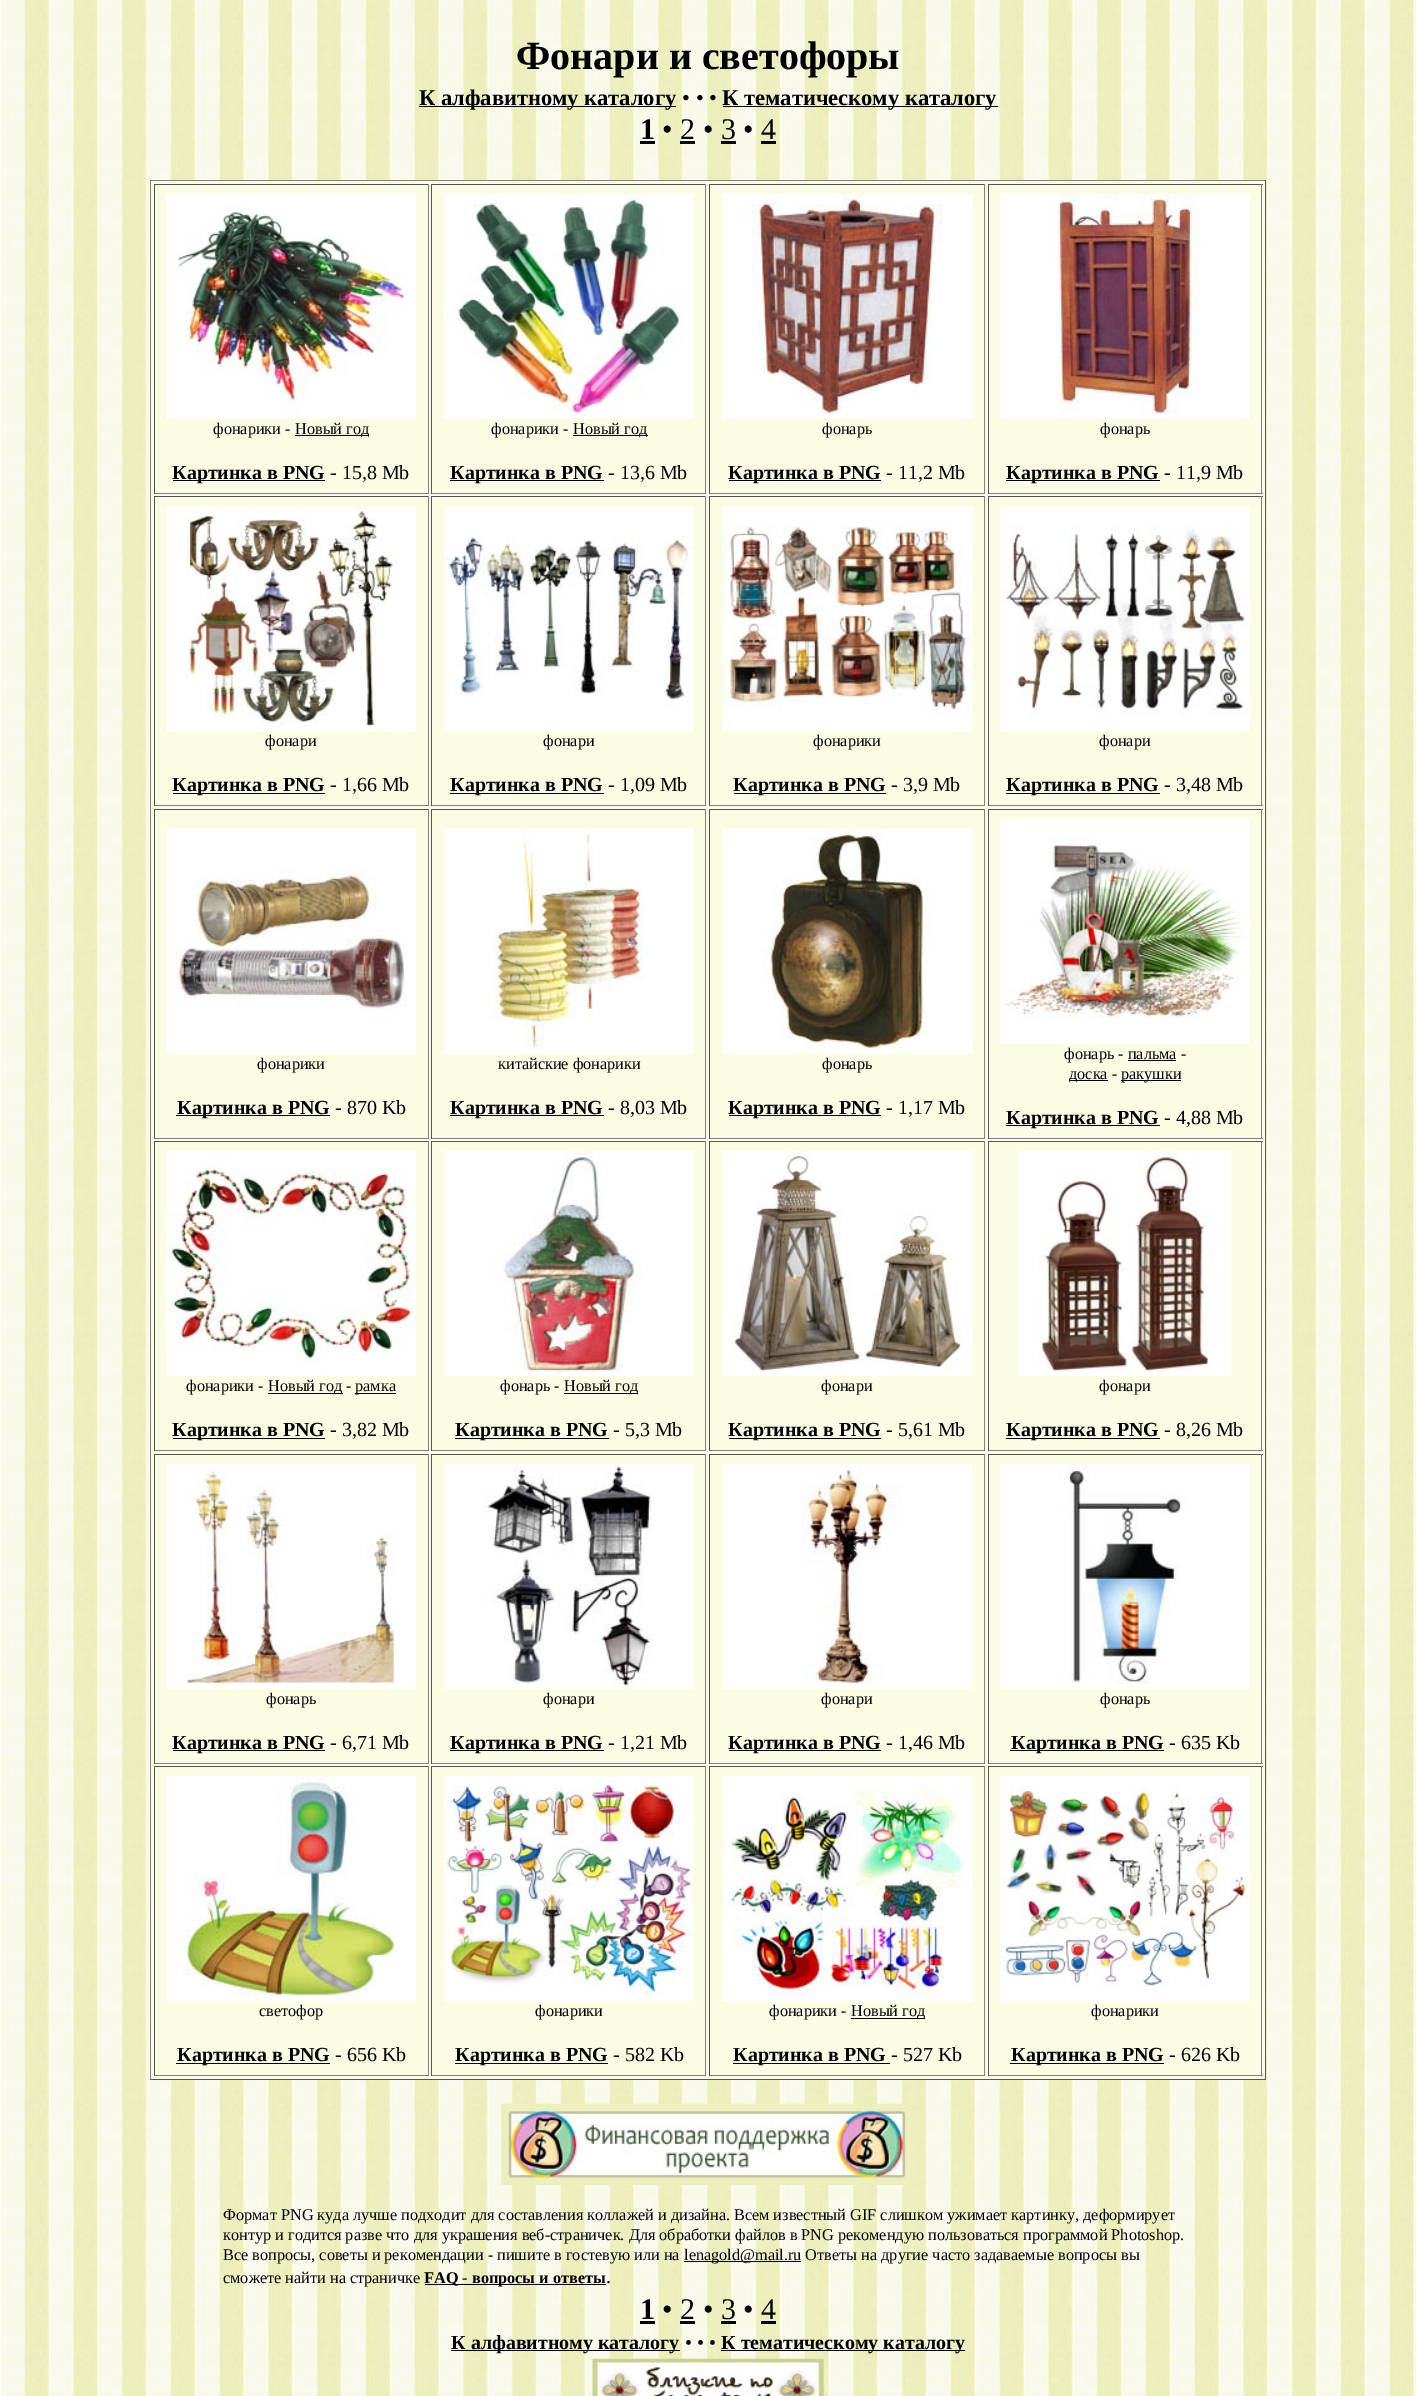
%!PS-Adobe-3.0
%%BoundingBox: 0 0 1416 2396
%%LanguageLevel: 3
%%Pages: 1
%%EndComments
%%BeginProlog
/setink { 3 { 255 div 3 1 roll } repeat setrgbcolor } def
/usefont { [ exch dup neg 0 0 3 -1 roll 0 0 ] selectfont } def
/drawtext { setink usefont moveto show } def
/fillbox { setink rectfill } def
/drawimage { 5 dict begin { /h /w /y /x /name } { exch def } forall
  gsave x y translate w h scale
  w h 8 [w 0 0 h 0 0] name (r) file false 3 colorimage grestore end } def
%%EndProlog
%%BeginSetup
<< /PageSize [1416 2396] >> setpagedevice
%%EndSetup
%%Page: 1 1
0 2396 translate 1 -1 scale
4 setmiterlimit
0 0 1416 2396 255 255 255 fillbox
(assets/img1.rgb) 0 0 1416 2396 drawimage
(Фонари и светофоры) 516 69 /LiberationSerif-Bold 40 0 0 0 drawtext
419 106 257 1 0 0 0 fillbox
(К алфавитному каталогу) 419 105 /LiberationSerif-Bold 22.5 0 0 0 drawtext
(• • •) 682 105 /LiberationSerif-Regular 22.5 0 0 0 drawtext
723 106 275 1 0 0 0 fillbox
(К тематическому каталогу) 722 105 /LiberationSerif-Bold 22.5 0 0 0 drawtext
(1) 640 139 /LiberationSerif-Bold 30 0 0 0 drawtext
640 141 15 3 0 0 0 fillbox
(• 2 • 3 • 4) 662 139 /LiberationSerif-Regular 30 0 0 0 drawtext
680 141 15 3 0 0 0 fillbox
721 141 15 3 0 0 0 fillbox
761 141 15 3 0 0 0 fillbox
151 181 1114 1898 250 253 228 fillbox
150 180 1116 1 128 128 128 fillbox
1265 180 1 1900 85 85 85 fillbox
150 2079 1116 1 85 85 85 fillbox
150 180 1 1900 128 128 128 fillbox
154 184 275 1 85 85 85 fillbox
428 184 1 310 128 128 128 fillbox
154 493 275 1 128 128 128 fillbox
154 184 1 310 85 85 85 fillbox
(assets/img2.rgb) 166 193 251 226 drawimage
(фонарики -) 213 434 /LiberationSerif-Regular 16.25 0 0 0 drawtext
295 435 74 1 0 0 0 fillbox
(Новый год) 295 434 /LiberationSerif-Regular 16.25 0 0 0 drawtext
173 480 152 1 0 0 0 fillbox
(Картинка в PNG) 172 479 /LiberationSerif-Bold 20 0 0 0 drawtext
(- 15,8 Mb) 330 479 /LiberationSerif-Regular 20 0 0 0 drawtext
431 184 275 1 85 85 85 fillbox
705 184 1 310 128 128 128 fillbox
431 493 275 1 128 128 128 fillbox
431 184 1 310 85 85 85 fillbox
(assets/img3.rgb) 443 193 251 226 drawimage
(фонарики -) 491 434 /LiberationSerif-Regular 16.25 0 0 0 drawtext
573 435 75 1 0 0 0 fillbox
(Новый год) 573 434 /LiberationSerif-Regular 16.25 0 0 0 drawtext
450 480 154 1 0 0 0 fillbox
(Картинка в PNG) 450 479 /LiberationSerif-Bold 20 0 0 0 drawtext
(- 13,6 Mb) 608 479 /LiberationSerif-Regular 20 0 0 0 drawtext
709 184 276 1 85 85 85 fillbox
984 184 1 310 128 128 128 fillbox
709 493 276 1 128 128 128 fillbox
709 184 1 310 85 85 85 fillbox
(assets/img4.rgb) 722 193 251 226 drawimage
(фонарь) 822 434 /LiberationSerif-Regular 16.25 0 0 0 drawtext
729 480 152 1 0 0 0 fillbox
(Картинка в PNG) 728 479 /LiberationSerif-Bold 20 0 0 0 drawtext
(- 11,2 Mb) 886 479 /LiberationSerif-Regular 20 0 0 0 drawtext
988 184 275 1 85 85 85 fillbox
1261 184 1 310 128 128 128 fillbox
988 493 275 1 128 128 128 fillbox
988 184 1 310 85 85 85 fillbox
(assets/img5.rgb) 1000 193 250 226 drawimage
(фонарь) 1100 434 /LiberationSerif-Regular 16.25 0 0 0 drawtext
1006 480 154 1 0 0 0 fillbox
(Картинка в PNG) 1006 479 /LiberationSerif-Bold 20 0 0 0 drawtext
(- 11,9 Mb) 1164 479 /LiberationSerif-Regular 20 0 0 0 drawtext
154 496 275 1 85 85 85 fillbox
428 496 1 310 128 128 128 fillbox
154 805 275 1 128 128 128 fillbox
154 496 1 310 85 85 85 fillbox
(assets/img6.rgb) 166 506 251 226 drawimage
(фонари) 265 746 /LiberationSerif-Regular 16.25 0 0 0 drawtext
173 793 152 1 0 0 0 fillbox
(Картинка в PNG) 172 791 /LiberationSerif-Bold 20 0 0 0 drawtext
(- 1,66 Mb) 330 791 /LiberationSerif-Regular 20 0 0 0 drawtext
431 496 275 1 85 85 85 fillbox
705 496 1 310 128 128 128 fillbox
431 805 275 1 128 128 128 fillbox
431 496 1 310 85 85 85 fillbox
(assets/img7.rgb) 443 506 251 226 drawimage
(фонари) 543 746 /LiberationSerif-Regular 16.25 0 0 0 drawtext
450 793 154 1 0 0 0 fillbox
(Картинка в PNG) 450 791 /LiberationSerif-Bold 20 0 0 0 drawtext
(- 1,09 Mb) 608 791 /LiberationSerif-Regular 20 0 0 0 drawtext
709 496 276 1 85 85 85 fillbox
984 496 1 310 128 128 128 fillbox
709 805 276 1 128 128 128 fillbox
709 496 1 310 85 85 85 fillbox
(assets/img8.rgb) 722 506 251 226 drawimage
(фонарики) 813 746 /LiberationSerif-Regular 16.25 0 0 0 drawtext
734 793 152 1 0 0 0 fillbox
(Картинка в PNG) 733 791 /LiberationSerif-Bold 20 0 0 0 drawtext
(- 3,9 Mb) 891 791 /LiberationSerif-Regular 20 0 0 0 drawtext
988 496 275 1 85 85 85 fillbox
1261 496 1 310 128 128 128 fillbox
988 805 275 1 128 128 128 fillbox
988 496 1 310 85 85 85 fillbox
(assets/img9.rgb) 1000 506 250 226 drawimage
(фонари) 1099 746 /LiberationSerif-Regular 16.25 0 0 0 drawtext
1006 793 154 1 0 0 0 fillbox
(Картинка в PNG) 1006 791 /LiberationSerif-Bold 20 0 0 0 drawtext
(- 3,48 Mb) 1164 791 /LiberationSerif-Regular 20 0 0 0 drawtext
154 809 275 1 85 85 85 fillbox
428 809 1 330 128 128 128 fillbox
154 1138 275 1 128 128 128 fillbox
154 809 1 330 85 85 85 fillbox
(assets/img10.rgb) 166 828 251 226 drawimage
(фонарики) 257 1069 /LiberationSerif-Regular 16.25 0 0 0 drawtext
176 1115 154 1 0 0 0 fillbox
(Картинка в PNG) 177 1114 /LiberationSerif-Bold 20 0 0 0 drawtext
(- 870 Kb) 335 1114 /LiberationSerif-Regular 20 0 0 0 drawtext
431 809 275 1 85 85 85 fillbox
705 809 1 330 128 128 128 fillbox
431 1138 275 1 128 128 128 fillbox
431 809 1 330 85 85 85 fillbox
(assets/img11.rgb) 443 828 251 226 drawimage
(китайские фонарики) 498 1069 /LiberationSerif-Regular 16.25 0 0 0 drawtext
450 1115 154 1 0 0 0 fillbox
(Картинка в PNG) 450 1114 /LiberationSerif-Bold 20 0 0 0 drawtext
(- 8,03 Mb) 608 1114 /LiberationSerif-Regular 20 0 0 0 drawtext
709 809 276 1 85 85 85 fillbox
984 809 1 330 128 128 128 fillbox
709 1138 276 1 128 128 128 fillbox
709 809 1 330 85 85 85 fillbox
(assets/img12.rgb) 722 828 251 226 drawimage
(фонарь) 822 1069 /LiberationSerif-Regular 16.25 0 0 0 drawtext
729 1115 152 1 0 0 0 fillbox
(Картинка в PNG) 728 1114 /LiberationSerif-Bold 20 0 0 0 drawtext
(- 1,17 Mb) 886 1114 /LiberationSerif-Regular 20 0 0 0 drawtext
988 809 275 1 85 85 85 fillbox
1261 809 1 330 128 128 128 fillbox
988 1138 275 1 128 128 128 fillbox
988 809 1 330 85 85 85 fillbox
(assets/img13.rgb) 1000 818 250 226 drawimage
(фонарь - пальма -) 1064 1059 /LiberationSerif-Regular 16.25 0 0 0 drawtext
1128 1060 48 1 0 0 0 fillbox
1069 1080 39 1 0 0 0 fillbox
(доска -) 1069 1079 /LiberationSerif-Regular 16.25 0 0 0 drawtext
1121 1080 60 1 0 0 0 fillbox
(ракушки) 1121 1079 /LiberationSerif-Regular 16.25 0 0 0 drawtext
1006 1125 154 1 0 0 0 fillbox
(Картинка в PNG) 1006 1124 /LiberationSerif-Bold 20 0 0 0 drawtext
(- 4,88 Mb) 1164 1124 /LiberationSerif-Regular 20 0 0 0 drawtext
154 1141 275 1 85 85 85 fillbox
428 1141 1 310 128 128 128 fillbox
154 1450 275 1 128 128 128 fillbox
154 1141 1 310 85 85 85 fillbox
(assets/img14.rgb) 166 1151 251 226 drawimage
(фонарики -) 186 1391 /LiberationSerif-Regular 16.25 0 0 0 drawtext
268 1393 75 1 0 0 0 fillbox
(Новый год -) 268 1391 /LiberationSerif-Regular 16.25 0 0 0 drawtext
355 1393 41 1 0 0 0 fillbox
(рамка) 355 1391 /LiberationSerif-Regular 16.25 0 0 0 drawtext
173 1438 152 1 0 0 0 fillbox
(Картинка в PNG) 172 1436 /LiberationSerif-Bold 20 0 0 0 drawtext
(- 3,82 Mb) 330 1436 /LiberationSerif-Regular 20 0 0 0 drawtext
431 1141 275 1 85 85 85 fillbox
705 1141 1 310 128 128 128 fillbox
431 1450 275 1 128 128 128 fillbox
431 1141 1 310 85 85 85 fillbox
(assets/img15.rgb) 443 1151 251 226 drawimage
(фонарь -) 500 1391 /LiberationSerif-Regular 16.25 0 0 0 drawtext
564 1393 74 1 0 0 0 fillbox
(Новый год) 564 1391 /LiberationSerif-Regular 16.25 0 0 0 drawtext
455 1438 154 1 0 0 0 fillbox
(Картинка в PNG) 455 1436 /LiberationSerif-Bold 20 0 0 0 drawtext
(- 5,3 Mb) 613 1436 /LiberationSerif-Regular 20 0 0 0 drawtext
709 1141 276 1 85 85 85 fillbox
984 1141 1 310 128 128 128 fillbox
709 1450 276 1 128 128 128 fillbox
709 1141 1 310 85 85 85 fillbox
(assets/img16.rgb) 722 1151 251 226 drawimage
(фонари) 821 1391 /LiberationSerif-Regular 16.25 0 0 0 drawtext
729 1438 152 1 0 0 0 fillbox
(Картинка в PNG) 728 1436 /LiberationSerif-Bold 20 0 0 0 drawtext
(- 5,61 Mb) 886 1436 /LiberationSerif-Regular 20 0 0 0 drawtext
988 1141 275 1 85 85 85 fillbox
1261 1141 1 310 128 128 128 fillbox
988 1450 275 1 128 128 128 fillbox
988 1141 1 310 85 85 85 fillbox
(assets/img17.rgb) 1018 1151 214 226 drawimage
(фонари) 1099 1391 /LiberationSerif-Regular 16.25 0 0 0 drawtext
1006 1438 154 1 0 0 0 fillbox
(Картинка в PNG) 1006 1436 /LiberationSerif-Bold 20 0 0 0 drawtext
(- 8,26 Mb) 1164 1436 /LiberationSerif-Regular 20 0 0 0 drawtext
154 1454 275 1 85 85 85 fillbox
428 1454 1 310 128 128 128 fillbox
154 1763 275 1 128 128 128 fillbox
154 1454 1 310 85 85 85 fillbox
(assets/img18.rgb) 166 1463 251 226 drawimage
(фонарь) 266 1704 /LiberationSerif-Regular 16.25 0 0 0 drawtext
173 1750 152 1 0 0 0 fillbox
(Картинка в PNG) 172 1749 /LiberationSerif-Bold 20 0 0 0 drawtext
(- 6,71 Mb) 330 1749 /LiberationSerif-Regular 20 0 0 0 drawtext
431 1454 275 1 85 85 85 fillbox
705 1454 1 310 128 128 128 fillbox
431 1763 275 1 128 128 128 fillbox
431 1454 1 310 85 85 85 fillbox
(assets/img19.rgb) 443 1463 251 226 drawimage
(фонари) 543 1704 /LiberationSerif-Regular 16.25 0 0 0 drawtext
450 1750 154 1 0 0 0 fillbox
(Картинка в PNG) 450 1749 /LiberationSerif-Bold 20 0 0 0 drawtext
(- 1,21 Mb) 608 1749 /LiberationSerif-Regular 20 0 0 0 drawtext
709 1454 276 1 85 85 85 fillbox
984 1454 1 310 128 128 128 fillbox
709 1763 276 1 128 128 128 fillbox
709 1454 1 310 85 85 85 fillbox
(assets/img20.rgb) 722 1463 251 226 drawimage
(фонари) 821 1704 /LiberationSerif-Regular 16.25 0 0 0 drawtext
729 1750 152 1 0 0 0 fillbox
(Картинка в PNG) 728 1749 /LiberationSerif-Bold 20 0 0 0 drawtext
(- 1,46 Mb) 886 1749 /LiberationSerif-Regular 20 0 0 0 drawtext
988 1454 275 1 85 85 85 fillbox
1261 1454 1 310 128 128 128 fillbox
988 1763 275 1 128 128 128 fillbox
988 1454 1 310 85 85 85 fillbox
(assets/img21.rgb) 1000 1463 250 226 drawimage
(фонарь) 1100 1704 /LiberationSerif-Regular 16.25 0 0 0 drawtext
1010 1750 154 1 0 0 0 fillbox
(Картинка в PNG) 1011 1749 /LiberationSerif-Bold 20 0 0 0 drawtext
(- 635 Kb) 1169 1749 /LiberationSerif-Regular 20 0 0 0 drawtext
154 1766 275 1 85 85 85 fillbox
428 1766 1 310 128 128 128 fillbox
154 2075 275 1 128 128 128 fillbox
154 1766 1 310 85 85 85 fillbox
(assets/img22.rgb) 166 1776 251 226 drawimage
(светофор) 259 2016 /LiberationSerif-Regular 16.25 0 0 0 drawtext
176 2063 154 1 0 0 0 fillbox
(Картинка в PNG) 177 2061 /LiberationSerif-Bold 20 0 0 0 drawtext
(- 656 Kb) 335 2061 /LiberationSerif-Regular 20 0 0 0 drawtext
431 1766 275 1 85 85 85 fillbox
705 1766 1 310 128 128 128 fillbox
431 2075 275 1 128 128 128 fillbox
431 1766 1 310 85 85 85 fillbox
(assets/img23.rgb) 443 1776 251 226 drawimage
(фонарики) 535 2016 /LiberationSerif-Regular 16.25 0 0 0 drawtext
455 2063 153 1 0 0 0 fillbox
(Картинка в PNG) 455 2061 /LiberationSerif-Bold 20 0 0 0 drawtext
(- 582 Kb) 613 2061 /LiberationSerif-Regular 20 0 0 0 drawtext
709 1766 276 1 85 85 85 fillbox
984 1766 1 310 128 128 128 fillbox
709 2075 276 1 128 128 128 fillbox
709 1766 1 310 85 85 85 fillbox
(assets/img24.rgb) 722 1776 251 226 drawimage
(фонарики -) 769 2016 /LiberationSerif-Regular 16.25 0 0 0 drawtext
851 2018 74 1 0 0 0 fillbox
(Новый год) 851 2016 /LiberationSerif-Regular 16.25 0 0 0 drawtext
733 2063 152 1 0 0 0 fillbox
(Картинка в PNG) 733 2061 /LiberationSerif-Bold 20 0 0 0 drawtext
(- 527 Kb) 891 2061 /LiberationSerif-Regular 20 0 0 0 drawtext
885 2063 5 1 0 0 0 fillbox
988 1766 275 1 85 85 85 fillbox
1261 1766 1 310 128 128 128 fillbox
988 2075 275 1 128 128 128 fillbox
988 1766 1 310 85 85 85 fillbox
(assets/img25.rgb) 1000 1776 250 226 drawimage
(фонарики) 1091 2016 /LiberationSerif-Regular 16.25 0 0 0 drawtext
1010 2063 154 1 0 0 0 fillbox
(Картинка в PNG) 1011 2061 /LiberationSerif-Bold 20 0 0 0 drawtext
(- 626 Kb) 1169 2061 /LiberationSerif-Regular 20 0 0 0 drawtext
(assets/img26.rgb) 501 2103 410 82 drawimage
(Формат PNG куда лучше подходит для составления коллажей и дизайна. Всем известный GIF слишком ужимает картинку, деформирует) 223 2220 /LiberationSerif-Regular 16.25 0 0 0 drawtext
(контур и годится разве что для украшения веб-страничек. Для обработки файлов в PNG рекомендую пользоваться программой Photoshop.) 223 2240 /LiberationSerif-Regular 16.25 0 0 0 drawtext
(Все вопросы, советы и рекомендации - пишите в гостевую или на) 223 2260 /LiberationSerif-Regular 16.25 0 0 0 drawtext
684 2261 117 1 0 0 0 fillbox
(lenagold@mail.ru Ответы на другие часто задаваемые вопросы вы) 684 2260 /LiberationSerif-Regular 16.25 0 0 0 drawtext
(сможете найти на страничке) 223 2283 /LiberationSerif-Regular 16.25 0 0 0 drawtext
425 2284 181 1 0 0 0 fillbox
(FAQ - вопросы и ответы) 424 2283 /LiberationSerif-Bold 16.25 0 0 0 drawtext
(.) 606 2283 /LiberationSerif-Regular 20 0 0 0 drawtext
(1) 640 2319 /LiberationSerif-Bold 30 0 0 0 drawtext
640 2321 15 3 0 0 0 fillbox
(• 2 • 3 • 4) 662 2319 /LiberationSerif-Regular 30 0 0 0 drawtext
680 2321 15 3 0 0 0 fillbox
721 2321 15 3 0 0 0 fillbox
761 2321 15 3 0 0 0 fillbox
451 2350 229 1 0 0 0 fillbox
(К алфавитному каталогу) 451 2349 /LiberationSerif-Bold 20 0 0 0 drawtext
(• • •) 685 2349 /LiberationSerif-Regular 20 0 0 0 drawtext
721 2350 244 1 0 0 0 fillbox
(К тематическому каталогу) 721 2349 /LiberationSerif-Bold 20 0 0 0 drawtext
(assets/img27.rgb) 592 2358 232 38 drawimage
showpage
%%EOF
